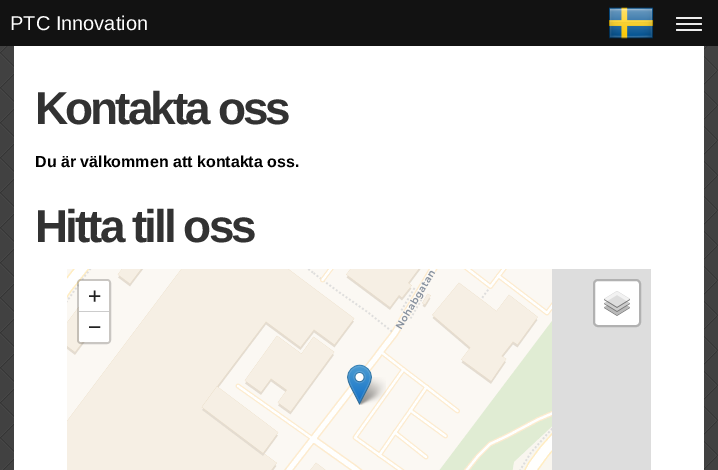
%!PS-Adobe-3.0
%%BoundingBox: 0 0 718 470
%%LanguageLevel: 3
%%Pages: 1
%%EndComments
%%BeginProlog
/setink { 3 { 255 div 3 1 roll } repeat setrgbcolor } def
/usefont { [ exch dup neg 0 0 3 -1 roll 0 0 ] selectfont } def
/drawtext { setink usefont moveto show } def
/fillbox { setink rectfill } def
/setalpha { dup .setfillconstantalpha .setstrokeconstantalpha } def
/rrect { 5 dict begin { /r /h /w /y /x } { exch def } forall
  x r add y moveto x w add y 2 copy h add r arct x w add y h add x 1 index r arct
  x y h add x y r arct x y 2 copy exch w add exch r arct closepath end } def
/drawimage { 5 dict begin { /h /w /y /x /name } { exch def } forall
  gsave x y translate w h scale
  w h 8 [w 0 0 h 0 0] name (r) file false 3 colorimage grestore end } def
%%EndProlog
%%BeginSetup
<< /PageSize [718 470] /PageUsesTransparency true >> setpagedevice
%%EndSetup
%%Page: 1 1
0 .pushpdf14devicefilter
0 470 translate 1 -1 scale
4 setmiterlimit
0 0 718 470 255 255 255 fillbox
(assets/img1.rgb) 0 46 718 424 drawimage
0 0 718 46 18 18 18 fillbox
(PTC Innovation) 10 30 /LiberationSans-Regular 20 255 255 255 drawtext
(assets/img2.rgb) 609 7 45 32 drawimage
238 238 238 setink
676 17 26 2 1 rrect fill
676 23 26 2 1 rrect fill
676 29 26 2 1 rrect fill
14 46 690 424 255 255 255 fillbox
/LiberationSans-Bold 46 usefont
50 50 50 setink
35 124 moveto -3 0 (Kontakta oss) ashow
(Du är välkommen att kontakta oss.) 35 167 /LiberationSans-Bold 16 0 0 0 drawtext
/LiberationSans-Bold 46 usefont
50 50 50 setink
35 242 moveto -3 0 (Hitta till oss) ashow
552 269 99 201 221 221 221 fillbox
(assets/img3.rgb) 67 269 229 201 drawimage
(assets/img4.rgb) 296 269 256 201 drawimage
(assets/img6.rgb) 357 377 29 28 drawimage
(assets/img5.rgb) 347 364 25 41 drawimage
0.2 setalpha
0 0 0 setink
2 setlinewidth
78 280 32 63 3 rrect stroke
1 setalpha
255 255 255 setink
81 281 moveto 107 281 lineto 108 281 109 282 109 283 curveto 109 312 lineto 79 312 lineto 79 283 lineto 79 282 80 281 81 281 curveto closepath fill
79 311 30 1 204 204 204 fillbox
(+) 88 303 /DejaVuSansMono-Regular 22 34 34 34 drawtext
255 255 255 setink
79 312 moveto 109 312 lineto 109 340 lineto 109 341 108 342 107 342 curveto 81 342 lineto 80 342 79 341 79 340 curveto closepath fill
(−) 88 334 /DejaVuSansMono-Regular 22 34 34 34 drawtext
255 255 255 setink
594 280 46 46 4 rrect gsave fill grestore
177 177 177 setink
stroke
(assets/img7.rgb) 604 291 26 25 drawimage
.poppdf14devicefilter showpage
%%EOF
